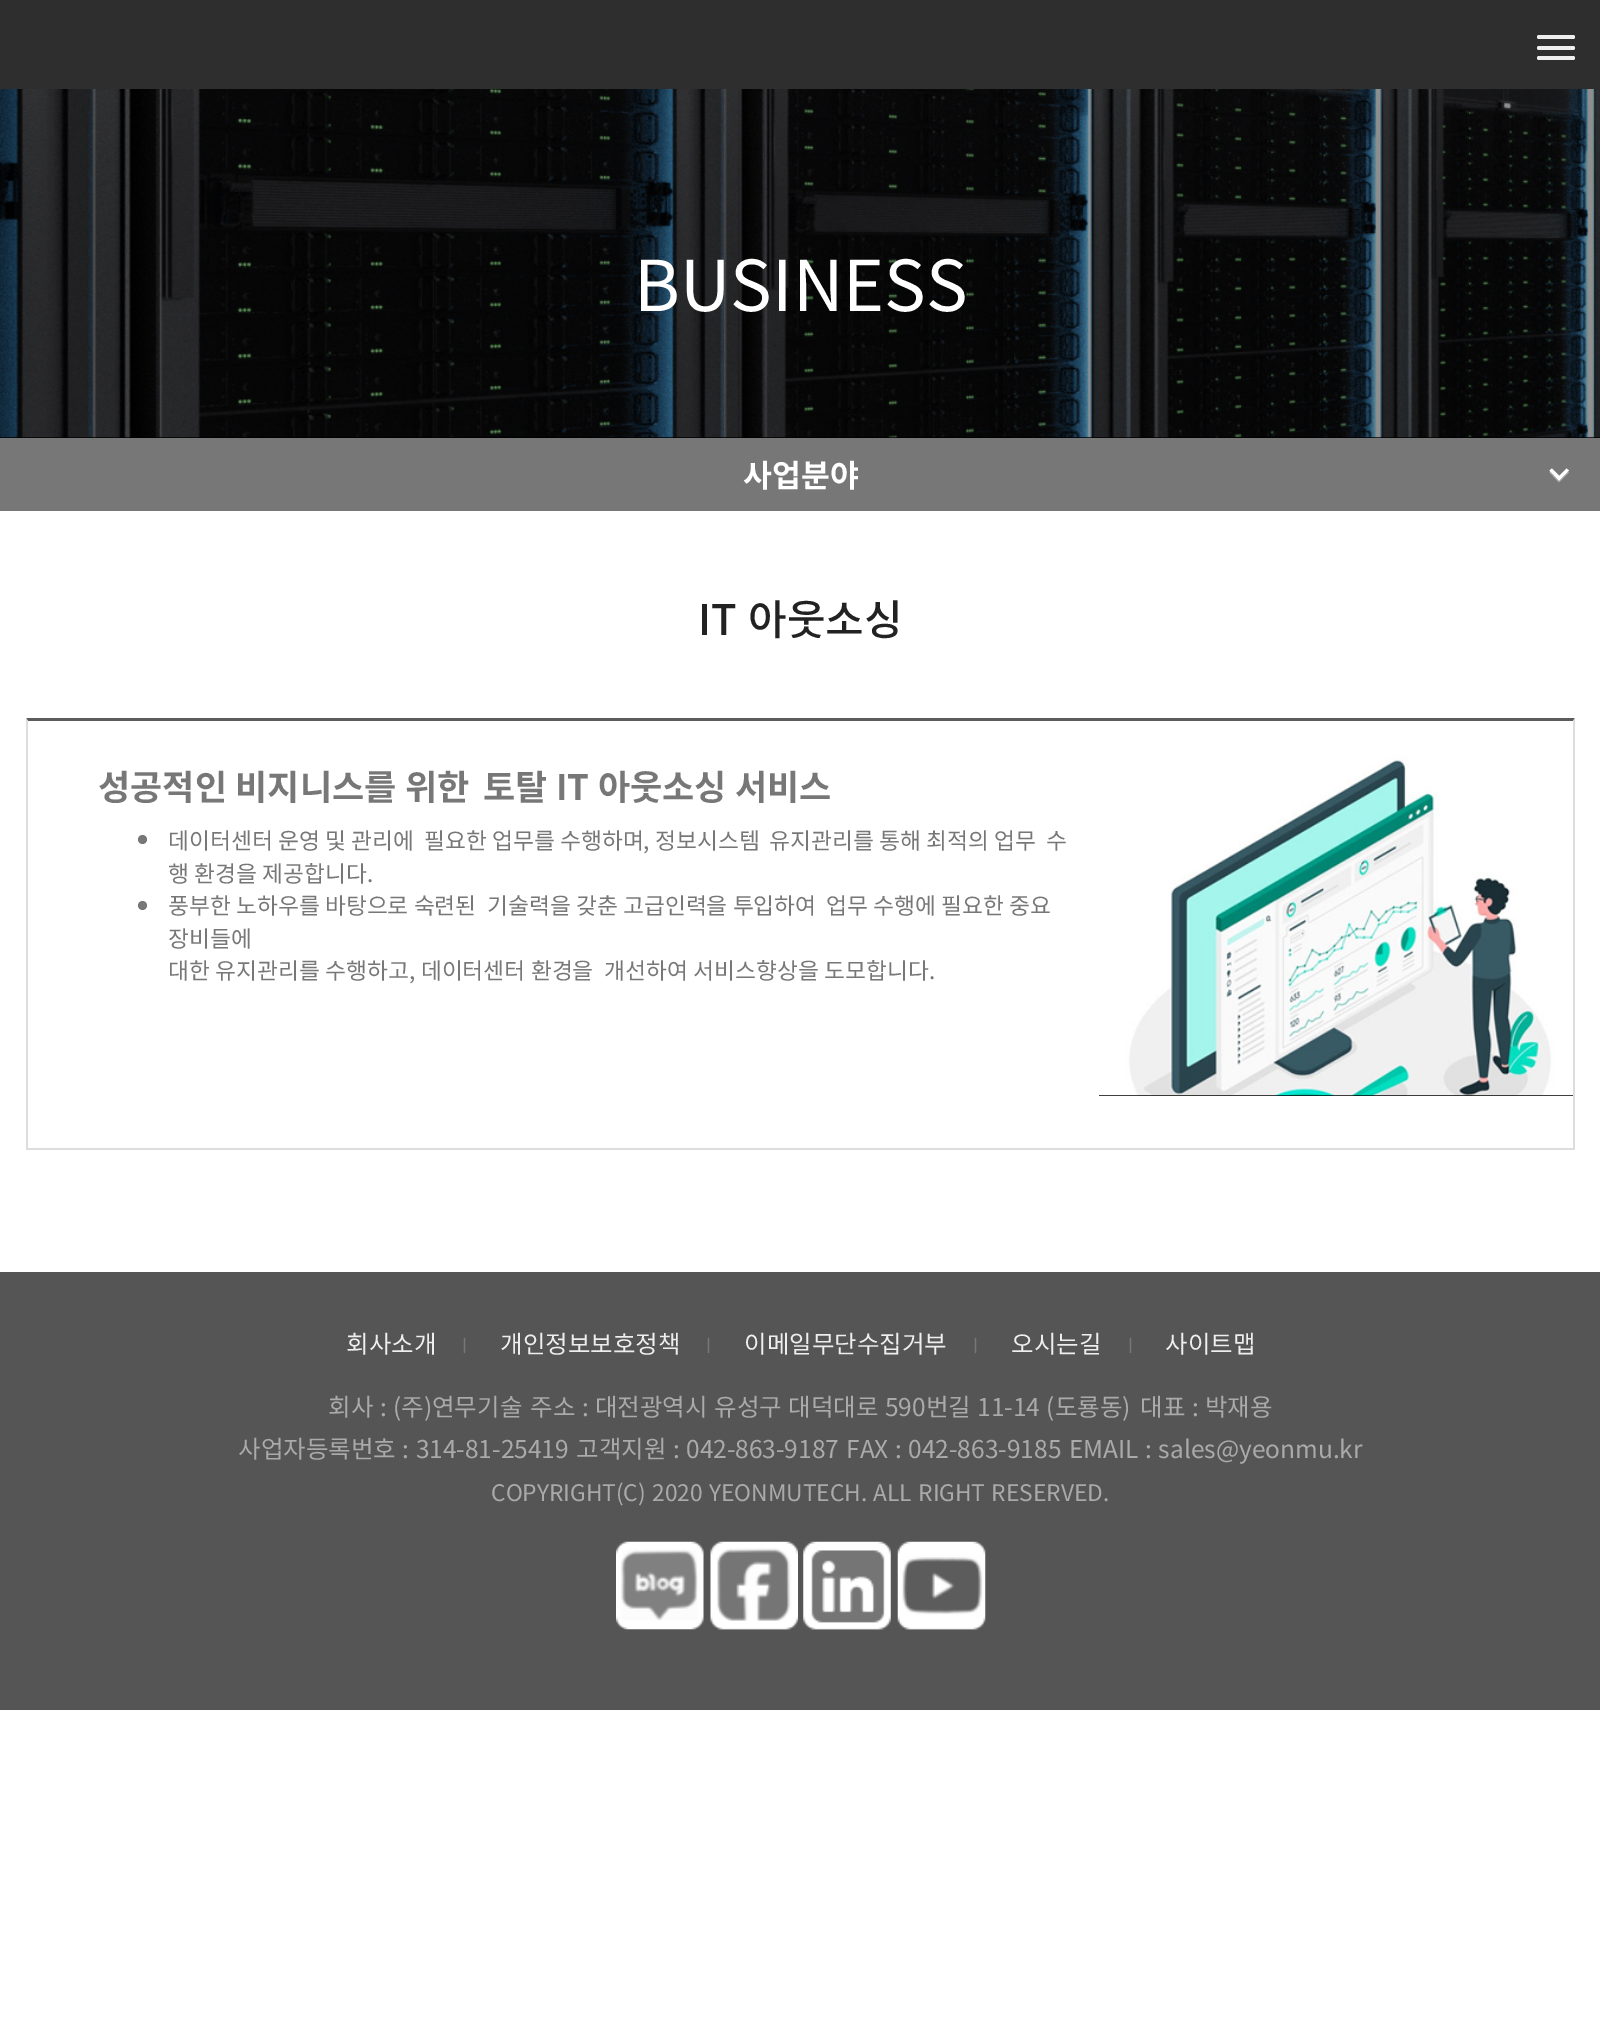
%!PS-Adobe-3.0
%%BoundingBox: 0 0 1600 2044
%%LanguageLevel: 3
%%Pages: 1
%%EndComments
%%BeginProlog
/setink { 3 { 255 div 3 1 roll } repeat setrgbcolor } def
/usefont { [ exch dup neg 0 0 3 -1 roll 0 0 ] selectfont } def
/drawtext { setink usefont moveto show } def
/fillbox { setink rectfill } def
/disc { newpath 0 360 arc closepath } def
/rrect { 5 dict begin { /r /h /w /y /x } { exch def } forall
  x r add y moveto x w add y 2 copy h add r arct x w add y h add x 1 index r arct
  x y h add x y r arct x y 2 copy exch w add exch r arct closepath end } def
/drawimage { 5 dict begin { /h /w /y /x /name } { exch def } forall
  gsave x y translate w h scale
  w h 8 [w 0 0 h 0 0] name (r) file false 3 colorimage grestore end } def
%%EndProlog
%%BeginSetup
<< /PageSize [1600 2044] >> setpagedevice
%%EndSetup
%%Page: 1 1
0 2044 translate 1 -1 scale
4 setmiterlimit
0 0 1600 2044 255 255 255 fillbox
0 0 1600 89 46 46 46 fillbox
238 238 238 setink
1537 35 38 4 2 rrect fill
1537 46 38 4 2 rrect fill
1537 56 38 4 2 rrect fill
0 437 1600 1 0 0 0 fillbox
(assets/img1.rgb) 0 89 1600 349 drawimage
(BUSINESS) 634 311 /NotoSansKR-Regular 70 255 255 255 drawtext
0 438 1600 73 119 119 119 fillbox
(사업분야) 743 487 /NotoSansKR-Bold 31.5 255 255 255 drawtext
167 167 167 setink
1559 482.5 moveto 1549.5 472.5 lineto 1552 470 lineto 1559 477.5 lineto closepath 1569 472.5 moveto 1559 482.5 lineto 1559 477.5 lineto 1566.5 470 lineto closepath fill
255 255 255 setink
1559 480.5 moveto 1549.5 470.5 lineto 1552 468.5 lineto 1561.5 478 lineto closepath fill
1559 480.5 moveto 1557 478 lineto 1566.5 468.5 lineto 1569 470.5 lineto closepath fill
/NotoSansKR-Medium 42 usefont
34 34 34 setink
698 635 moveto 2 0 32 (IT 아웃소싱) widthshow
92 92 92 setink
26 718 moveto 1575 718 lineto 1573 721 lineto 28 721 lineto closepath fill
221 221 221 setink
1575 718 moveto 1575 1150 lineto 1573 1148 lineto 1573 721 lineto closepath fill
26 1148 1549 2 221 221 221 fillbox
26 1150 moveto 26 718 lineto 28 721 lineto 28 1148 lineto closepath fill
/NotoSansKR-Bold 35 usefont
119 119 119 setink
98 800 moveto 0.5 0 32 (성공적인 비지니스를 위한) widthshow
483 800 moveto 0.5 0 32 (토탈 IT 아웃소싱 서비스) widthshow
142.5 839.5 4.5 disc fill
(데이터센터 운영 및 관리에) 168 849 /NotoSansKR-Regular 22.75 119 119 119 drawtext
(필요한 업무를 수행하며, 정보시스템) 424 849 /NotoSansKR-Regular 22.75 119 119 119 drawtext
(유지관리를 통해 최적의 업무) 769 849 /NotoSansKR-Regular 22.75 119 119 119 drawtext
(수) 1046 849 /NotoSansKR-Regular 22.75 119 119 119 drawtext
(행 환경을 제공합니다.) 168 882 /NotoSansKR-Regular 22.75 119 119 119 drawtext
142.5 905.5 4.5 disc fill
(풍부한 노하우를 바탕으로 숙련된) 168 914 /NotoSansKR-Regular 22.75 119 119 119 drawtext
(기술력을 갖춘 고급인력을 투입하여) 487 914 /NotoSansKR-Regular 22.75 119 119 119 drawtext
(업무 수행에 필요한 중요) 826 914 /NotoSansKR-Regular 22.75 119 119 119 drawtext
(장비들에) 168 947 /NotoSansKR-Regular 22.75 119 119 119 drawtext
168 979 moveto 0.25 0 32 (대한 유지관리를 수행하고, 데이터센터 환경을) widthshow
604 979 moveto 0.25 0 32 (개선하여 서비스향상을 도모합니다.) widthshow
1099 1095 474 1 0 0 0 fillbox
(assets/img2.rgb) 1099 756 474 340 drawimage
0 1272 1600 438 85 85 85 fillbox
(회사소개) 346 1353 /NotoSansKR-Regular 24.5 238 238 238 drawtext
(l) 462 1353 /NanumGothic-Regular 19 119 119 119 drawtext
(개인정보보호정책) 500 1353 /NotoSansKR-Regular 24.5 238 238 238 drawtext
(l) 706 1353 /NanumGothic-Regular 19 119 119 119 drawtext
(이메일무단수집거부) 744 1353 /NotoSansKR-Regular 24.5 238 238 238 drawtext
(l) 973 1353 /NanumGothic-Regular 19 119 119 119 drawtext
(오시는길) 1011 1353 /NotoSansKR-Regular 24.5 238 238 238 drawtext
(l) 1128 1353 /NanumGothic-Regular 19 119 119 119 drawtext
(사이트맵) 1165 1353 /NotoSansKR-Regular 24.5 238 238 238 drawtext
170 170 170 setink
328 1416 moveto 1 0 32 (회사 : \(주\)연무기술) widthshow
530 1416 moveto 1 0 32 (주소 : 대전광역시 유성구 대덕대로 590번길 11-14 \(도룡동\)) widthshow
1140 1416 moveto 1 0 32 (대표 : 박재용) widthshow
238 1458 moveto 1 0 32 (사업자등록번호 : 314-81-25419) widthshow
576 1458 moveto 1 0 32 (고객지원 : 042-863-9187) widthshow
846 1458 moveto 1 0 32 (FAX : 042-863-9185) widthshow
1069 1458 moveto 1 0 32 (EMAIL : sales@yeonmu.kr) widthshow
/NotoSansKR-Regular 22.75 usefont
491 1501 moveto 1.25 0 32 (COPYRIGHT\(C\) 2020 YEONMUTECH. ALL RIGHT RESERVED.) widthshow
(assets/img3.rgb) 616 1541 88 89 drawimage
(assets/img4.rgb) 710 1541 88 89 drawimage
(assets/img5.rgb) 803 1541 88 89 drawimage
(assets/img6.rgb) 897 1541 89 89 drawimage
showpage
%%EOF
